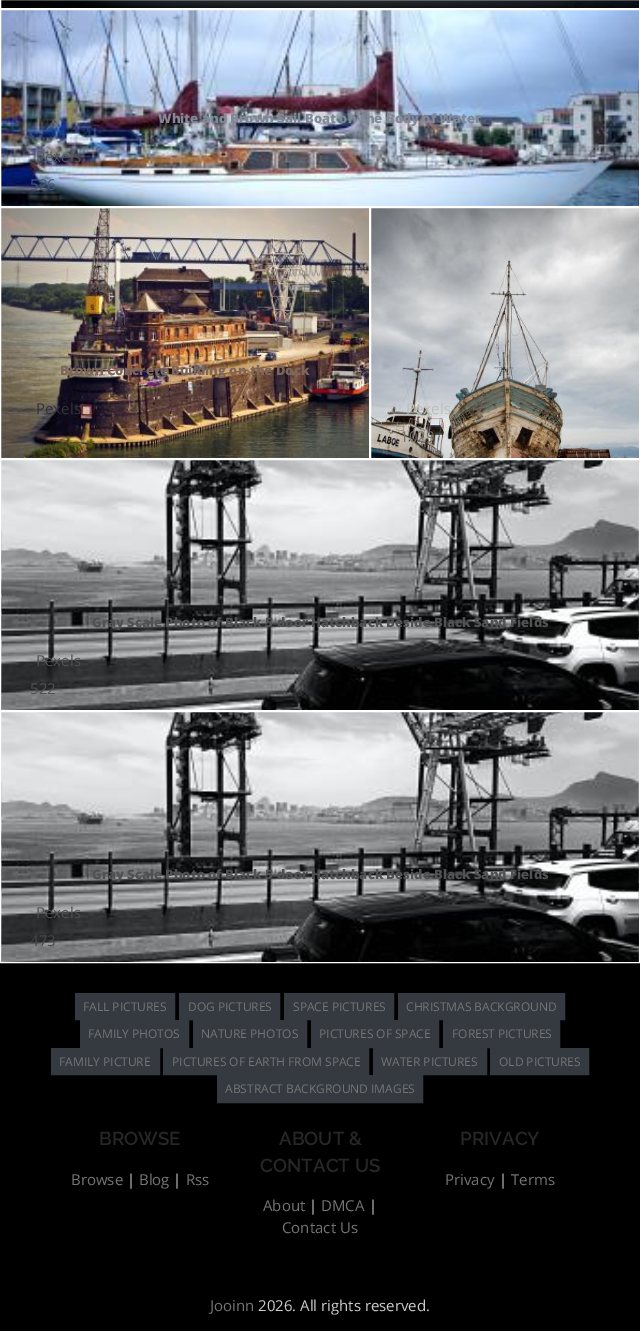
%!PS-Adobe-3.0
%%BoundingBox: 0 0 640 1331
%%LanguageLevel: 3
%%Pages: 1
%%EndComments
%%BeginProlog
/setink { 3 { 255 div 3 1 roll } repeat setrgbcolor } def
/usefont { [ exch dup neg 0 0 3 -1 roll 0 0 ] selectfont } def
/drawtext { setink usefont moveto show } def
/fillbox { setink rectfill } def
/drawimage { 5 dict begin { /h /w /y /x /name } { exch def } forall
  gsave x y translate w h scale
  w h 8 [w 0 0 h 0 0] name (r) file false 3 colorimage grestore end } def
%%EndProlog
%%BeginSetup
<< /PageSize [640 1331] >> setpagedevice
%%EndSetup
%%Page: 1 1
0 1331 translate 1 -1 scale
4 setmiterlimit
0 0 640 1331 0 0 0 fillbox
(assets/img1.rgb) 1 0 638 8 drawimage
255 255 255 setink
0.5 -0.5 639 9 rectstroke
(assets/img2.rgb) 1 10 638 196 drawimage
0.5 9.5 639 197 rectstroke
(White and Brown Sail Boat on the Body of Water) 158 123 /OpenSans-ExtraBold 13 130 136 152 drawtext
(Pexels) 36 162 /OpenSans-Regular 15 83 86 100 drawtext
(526) 30 190 /OpenSans-Regular 15 71 88 123 drawtext
(assets/img3.rgb) 1 208 368 250 drawimage
255 255 255 setink
0.5 207.5 369 251 rectstroke
(Brown Concrete Building on the Dock) 60 375 /OpenSans-ExtraBold 13 126 102 89 drawtext
(Pexels) 36 414 /OpenSans-Regular 15 54 49 54 drawtext
(assets/img4.rgb) 371 208 268 250 drawimage
255 255 255 setink
370.5 207.5 269 251 rectstroke
(Pexels) 406 414 /OpenSans-Regular 15 188 190 190 drawtext
(1029) 400 442 /OpenSans-Regular 15 120 114 106 drawtext
(assets/img5.rgb) 1 460 638 250 drawimage
255 255 255 setink
0.5 459.5 639 251 rectstroke
(Gray Scale Photo of Black 5-door Hatchback Beside Black Sand Fields) 92 627 /OpenSans-ExtraBold 13 80 81 83 drawtext
(Pexels) 36 666 /OpenSans-Regular 15 80 81 83 drawtext
(522) 30 694 /OpenSans-Regular 15 80 81 83 drawtext
(assets/img6.rgb) 1 712 638 250 drawimage
255 255 255 setink
0.5 711.5 639 251 rectstroke
(Gray Scale Photo of Black 5-door Hatchback Beside Black Sand Fields) 92 879 /OpenSans-ExtraBold 13 80 81 83 drawtext
(Pexels) 36 918 /OpenSans-Regular 15 80 81 83 drawtext
(473) 30 946 /OpenSans-Regular 15 69 70 72 drawtext
52 58 64 setink
75.5 993.5 moveto 174.5 993.5 lineto 174.5 1019.5 lineto 75.5 1019.5 lineto closepath gsave fill grestore
stroke
(FALL PICTURES) 83 1011 /OpenSans-Regular 12 117 117 117 drawtext
52 58 64 setink
179.5 993.5 moveto 279.5 993.5 lineto 279.5 1019.5 lineto 179.5 1019.5 lineto closepath gsave fill grestore
stroke
(DOG PICTURES) 188 1011 /OpenSans-Regular 12 117 117 117 drawtext
52 58 64 setink
284.5 993.5 moveto 393.5 993.5 lineto 393.5 1019.5 lineto 284.5 1019.5 lineto closepath gsave fill grestore
stroke
(SPACE PICTURES) 293 1011 /OpenSans-Regular 12 117 117 117 drawtext
52 58 64 setink
398.5 993.5 moveto 564.5 993.5 lineto 564.5 1019.5 lineto 398.5 1019.5 lineto closepath gsave fill grestore
stroke
(CHRISTMAS BACKGROUND) 406 1011 /OpenSans-Regular 12 117 117 117 drawtext
52 58 64 setink
80.5 1020.5 moveto 188.5 1020.5 lineto 188.5 1047.5 lineto 80.5 1047.5 lineto closepath gsave fill grestore
stroke
(FAMILY PHOTOS) 88 1038 /OpenSans-Regular 12 117 117 117 drawtext
52 58 64 setink
193.5 1020.5 moveto 306.5 1020.5 lineto 306.5 1047.5 lineto 193.5 1047.5 lineto closepath gsave fill grestore
stroke
(NATURE PHOTOS) 201 1038 /OpenSans-Regular 12 117 117 117 drawtext
52 58 64 setink
311.5 1020.5 moveto 438.5 1020.5 lineto 438.5 1047.5 lineto 311.5 1047.5 lineto closepath gsave fill grestore
stroke
(PICTURES OF SPACE) 319 1038 /OpenSans-Regular 12 117 117 117 drawtext
52 58 64 setink
443.5 1020.5 moveto 559.5 1020.5 lineto 559.5 1047.5 lineto 443.5 1047.5 lineto closepath gsave fill grestore
stroke
(FOREST PICTURES) 452 1038 /OpenSans-Regular 12 117 117 117 drawtext
52 58 64 setink
51.5 1048.5 moveto 159.5 1048.5 lineto 159.5 1074.5 lineto 51.5 1074.5 lineto closepath gsave fill grestore
stroke
(FAMILY PICTURE) 59 1066 /OpenSans-Regular 12 117 117 117 drawtext
52 58 64 setink
163.5 1048.5 moveto 368.5 1048.5 lineto 368.5 1074.5 lineto 163.5 1074.5 lineto closepath gsave fill grestore
stroke
(PICTURES OF EARTH FROM SPACE) 172 1066 /OpenSans-Regular 12 117 117 117 drawtext
52 58 64 setink
373.5 1048.5 moveto 486.5 1048.5 lineto 486.5 1074.5 lineto 373.5 1074.5 lineto closepath gsave fill grestore
stroke
(WATER PICTURES) 381 1066 /OpenSans-Regular 12 117 117 117 drawtext
52 58 64 setink
490.5 1048.5 moveto 588.5 1048.5 lineto 588.5 1074.5 lineto 490.5 1074.5 lineto closepath gsave fill grestore
stroke
(OLD PICTURES) 499 1066 /OpenSans-Regular 12 117 117 117 drawtext
52 58 64 setink
217.5 1075.5 moveto 422.5 1075.5 lineto 422.5 1102.5 lineto 217.5 1102.5 lineto closepath gsave fill grestore
stroke
(ABSTRACT BACKGROUND IMAGES) 225 1093 /OpenSans-Regular 12 117 117 117 drawtext
(BROWSE) 99 1145 /Raleway-SemiBold 18.75 39 39 39 drawtext
(Browse) 71 1185 /OpenSans-Regular 15 117 117 117 drawtext
(|) 127 1185 /OpenSans-Regular 15 204 204 204 drawtext
(Blog) 139 1185 /OpenSans-Regular 15 117 117 117 drawtext
(|) 173 1185 /OpenSans-Regular 15 204 204 204 drawtext
(Rss) 186 1185 /OpenSans-Regular 15 117 117 117 drawtext
(ABOUT &) 279 1145 /Raleway-SemiBold 18.75 39 39 39 drawtext
(CONTACT US) 260 1172 /Raleway-SemiBold 18.75 39 39 39 drawtext
(About) 263 1211 /OpenSans-Regular 15 117 117 117 drawtext
(|) 309 1211 /OpenSans-Regular 15 204 204 204 drawtext
(DMCA) 321 1211 /OpenSans-Regular 15 117 117 117 drawtext
(|) 369 1211 /OpenSans-Regular 15 204 204 204 drawtext
(Contact Us) 282 1233 /OpenSans-Regular 15 117 117 117 drawtext
(PRIVACY) 460 1145 /Raleway-SemiBold 18.75 39 39 39 drawtext
(Privacy) 445 1185 /OpenSans-Regular 15 117 117 117 drawtext
(|) 499 1185 /OpenSans-Regular 15 204 204 204 drawtext
(Terms) 511 1185 /OpenSans-Regular 15 117 117 117 drawtext
(Jooinn) 210 1311 /OpenSans-Regular 15 117 117 117 drawtext
(2026. All rights reserved.) 258 1311 /OpenSans-Regular 15 204 204 204 drawtext
showpage
%%EOF
